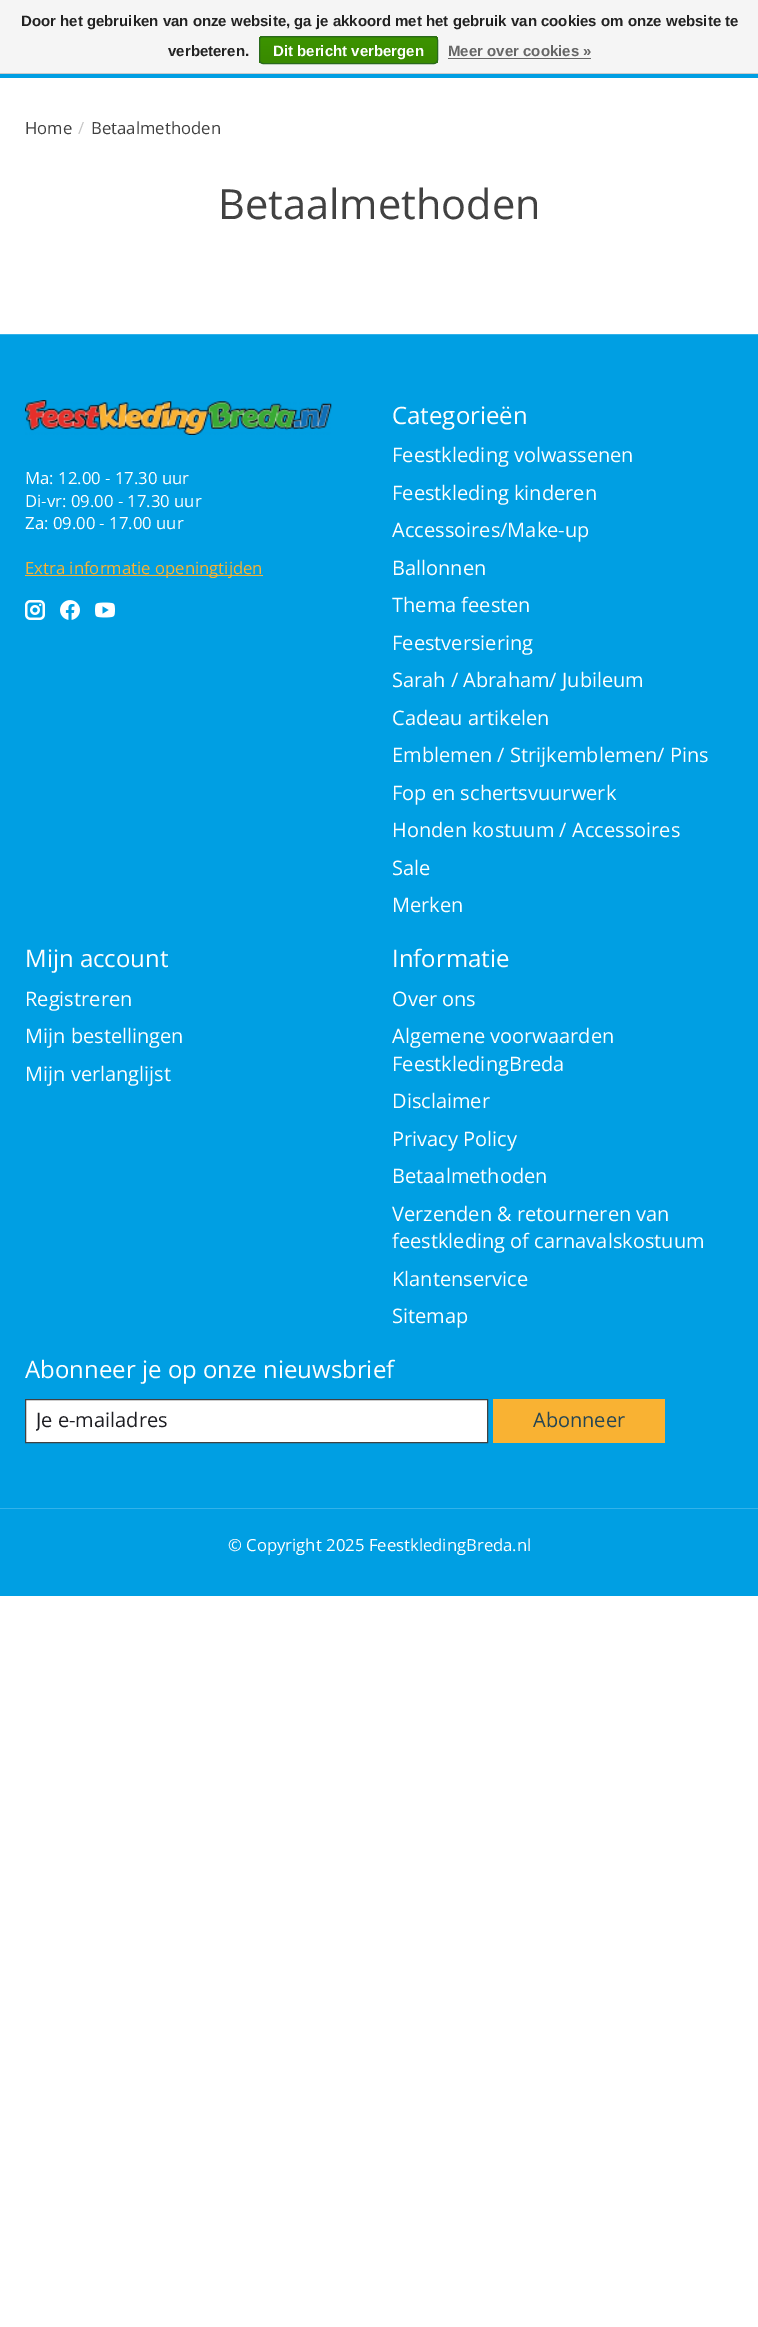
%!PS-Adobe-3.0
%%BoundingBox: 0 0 758 2327
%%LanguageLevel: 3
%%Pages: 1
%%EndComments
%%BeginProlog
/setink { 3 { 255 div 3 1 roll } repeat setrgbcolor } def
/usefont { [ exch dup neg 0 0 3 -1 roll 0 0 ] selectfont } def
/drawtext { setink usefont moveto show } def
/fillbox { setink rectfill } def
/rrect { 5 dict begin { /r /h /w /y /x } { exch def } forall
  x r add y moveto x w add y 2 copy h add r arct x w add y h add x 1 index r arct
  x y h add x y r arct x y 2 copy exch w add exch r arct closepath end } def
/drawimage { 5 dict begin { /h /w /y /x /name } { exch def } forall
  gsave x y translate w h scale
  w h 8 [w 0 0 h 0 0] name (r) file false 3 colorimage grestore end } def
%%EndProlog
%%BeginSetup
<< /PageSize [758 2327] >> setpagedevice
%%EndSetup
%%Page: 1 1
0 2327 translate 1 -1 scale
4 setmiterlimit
0 0 758 2327 255 255 255 fillbox
0 0 758 73 245 245 245 fillbox
0 73 758 1 204 204 204 fillbox
(Door het gebruiken van onze website, ga je akkoord met het gebruik van cookies om onze website te) 21 26 /LiberationSans-Bold 15 34 34 34 drawtext
(verbeteren.) 168 56 /LiberationSans-Bold 15 34 34 34 drawtext
gsave
259 36 179 28 4 rrect clip newpath
gsave 259 36 moveto 438 36 lineto 438 38 lineto 259 38 lineto closepath clip newpath
<< /ShadingType 2 /ColorSpace /DeviceRGB /Coords [348 12 348 38] /Extend [true true] /Function << /FunctionType 2 /Domain [0 1] /C0 [0.235 0.576 0] /C1 [0.224 0.541 0] /N 1 >> >> shfill grestore
gsave 259 38 moveto 438 38 lineto 438 63 lineto 259 63 lineto closepath clip newpath
<< /ShadingType 2 /ColorSpace /DeviceRGB /Coords [348 37 348 63] /Extend [true true] /Function << /FunctionType 2 /Domain [0 1] /C0 [0.235 0.576 0] /C1 [0.224 0.541 0] /N 1 >> >> shfill grestore
grestore
41 105 29 setink
259.5 36.5 178 27 3.5 rrect stroke
(Dit bericht verbergen) 273 56 /LiberationSans-Bold 15 255 255 255 drawtext
(Meer over cookies ») 448 56 /LiberationSans-Bold 15 102 102 102 drawtext
448 58 143 1 102 102 102 fillbox
0 74 758 4 0 159 227 fillbox
(Home) 25 134 /OpenSans-Regular 16.7 65 65 65 drawtext
(/) 78 134 /OpenSans-Regular 16.7 198 198 198 drawtext
(Betaalmethoden) 91 134 /OpenSans-Regular 16.7 65 65 65 drawtext
(Betaalmethoden) 218 219 /OpenSans-Regular 41.5 65 65 65 drawtext
0 335 758 1261 0 159 227 fillbox
0 334 758 1 51 178 233 fillbox
(assets/img1.rgb) 25 400 307 35 drawimage
(Ma: 12.00 - 17.30 uur) 25 484 /OpenSans-Regular 16.7 255 255 255 drawtext
(Di-vr: 09.00 - 17.30 uur) 25 507 /OpenSans-Regular 16.7 255 255 255 drawtext
(Za: 09.00 - 17.00 uur) 25 529 /OpenSans-Regular 16.7 255 255 255 drawtext
25 575 238 1 249 178 51 fillbox
(Extra informatie openingtijden) 25 574 /OpenSans-Regular 16.7 249 178 51 drawtext
(assets/img2.rgb) 25 600 20 20 drawimage
(assets/img3.rgb) 60 600 20 20 drawimage
(assets/img4.rgb) 95 602 20 16 drawimage
(Categorieën) 392 424 /OpenSans-Regular 24 255 255 255 drawtext
(Feestkleding volwassenen) 392 462 /OpenSans-Regular 20 255 255 255 drawtext
(Feestkleding kinderen) 392 500 /OpenSans-Regular 20 255 255 255 drawtext
(Accessoires/Make-up) 392 537 /OpenSans-Regular 20 255 255 255 drawtext
(Ballonnen) 392 575 /OpenSans-Regular 20 255 255 255 drawtext
(Thema feesten) 392 612 /OpenSans-Regular 20 255 255 255 drawtext
(Feestversiering) 392 650 /OpenSans-Regular 20 255 255 255 drawtext
(Sarah / Abraham/ Jubileum) 392 687 /OpenSans-Regular 20 255 255 255 drawtext
(Cadeau artikelen) 392 725 /OpenSans-Regular 20 255 255 255 drawtext
(Emblemen / Strijkemblemen/ Pins) 392 762 /OpenSans-Regular 20 255 255 255 drawtext
(Fop en schertsvuurwerk) 392 800 /OpenSans-Regular 20 255 255 255 drawtext
(Honden kostuum / Accessoires) 392 837 /OpenSans-Regular 20 255 255 255 drawtext
(Sale) 392 875 /OpenSans-Regular 20 255 255 255 drawtext
(Merken) 392 912 /OpenSans-Regular 20 255 255 255 drawtext
(Mijn account) 25 967 /OpenSans-Regular 24 255 255 255 drawtext
(Registreren) 25 1006 /OpenSans-Regular 20 255 255 255 drawtext
(Mijn bestellingen) 25 1043 /OpenSans-Regular 20 255 255 255 drawtext
(Mijn verlanglijst) 25 1081 /OpenSans-Regular 20 255 255 255 drawtext
(Informatie) 392 967 /OpenSans-Regular 24 255 255 255 drawtext
(Over ons) 392 1006 /OpenSans-Regular 20 255 255 255 drawtext
(Algemene voorwaarden) 392 1043 /OpenSans-Regular 20 255 255 255 drawtext
(FeestkledingBreda) 392 1071 /OpenSans-Regular 20 255 255 255 drawtext
(Disclaimer) 392 1108 /OpenSans-Regular 20 255 255 255 drawtext
(Privacy Policy) 392 1146 /OpenSans-Regular 20 255 255 255 drawtext
(Betaalmethoden) 392 1183 /OpenSans-Regular 20 255 255 255 drawtext
(Verzenden & retourneren van) 392 1221 /OpenSans-Regular 20 255 255 255 drawtext
(feestkleding of carnavalskostuum) 392 1248 /OpenSans-Regular 20 255 255 255 drawtext
(Klantenservice) 392 1286 /OpenSans-Regular 20 255 255 255 drawtext
(Sitemap) 392 1323 /OpenSans-Regular 20 255 255 255 drawtext
(Abonneer je op onze nieuwsbrief) 25 1378 /OpenSans-Regular 24 255 255 255 drawtext
25.5 1399.5 moveto 487.5 1399.5 lineto 487.5 1442.5 lineto 25.5 1442.5 lineto closepath gsave fill grestore
65 65 65 setink
stroke
gsave
36 1406 440 28 rectclip
(Je e-mailadres) 36 1427 /OpenSans-Regular 20 28 28 33 drawtext
grestore
493 1399 172 44 249 178 51 fillbox
(Abonneer) 533 1427 /OpenSans-Regular 20 38 70 83 drawtext
0 1508 758 1 51 178 233 fillbox
(© Copyright 2025 FeestkledingBreda.nl) 228 1551 /OpenSans-Regular 16.7 255 255 255 drawtext
showpage
%%EOF
